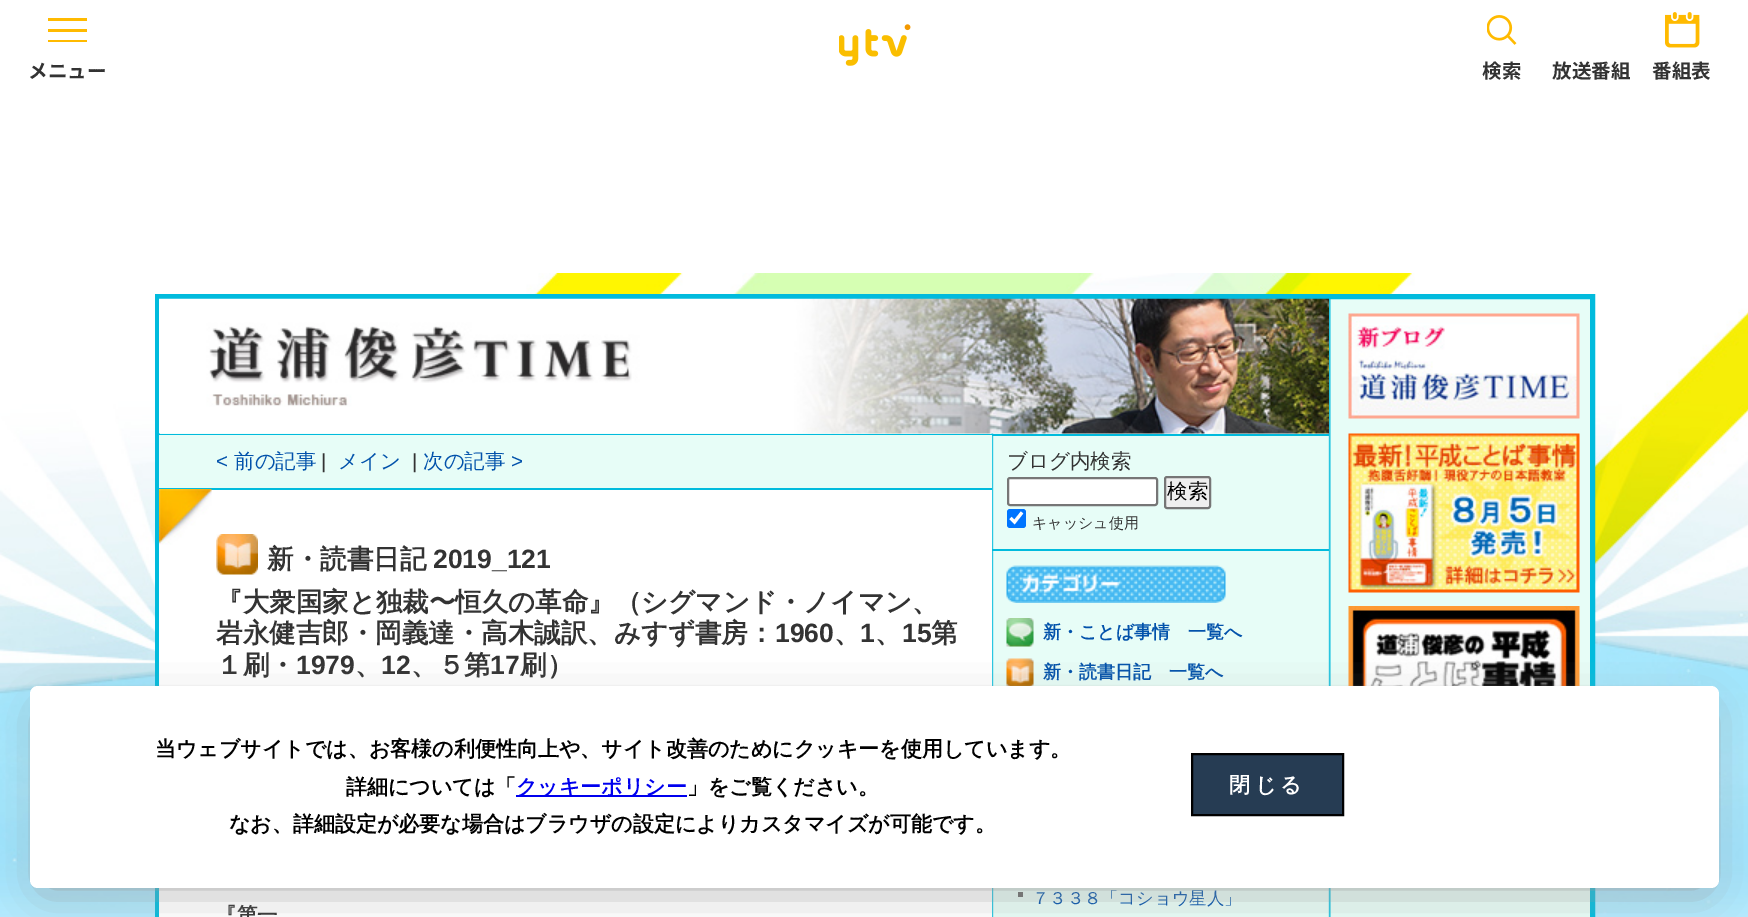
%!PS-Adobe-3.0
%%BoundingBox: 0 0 1748 917
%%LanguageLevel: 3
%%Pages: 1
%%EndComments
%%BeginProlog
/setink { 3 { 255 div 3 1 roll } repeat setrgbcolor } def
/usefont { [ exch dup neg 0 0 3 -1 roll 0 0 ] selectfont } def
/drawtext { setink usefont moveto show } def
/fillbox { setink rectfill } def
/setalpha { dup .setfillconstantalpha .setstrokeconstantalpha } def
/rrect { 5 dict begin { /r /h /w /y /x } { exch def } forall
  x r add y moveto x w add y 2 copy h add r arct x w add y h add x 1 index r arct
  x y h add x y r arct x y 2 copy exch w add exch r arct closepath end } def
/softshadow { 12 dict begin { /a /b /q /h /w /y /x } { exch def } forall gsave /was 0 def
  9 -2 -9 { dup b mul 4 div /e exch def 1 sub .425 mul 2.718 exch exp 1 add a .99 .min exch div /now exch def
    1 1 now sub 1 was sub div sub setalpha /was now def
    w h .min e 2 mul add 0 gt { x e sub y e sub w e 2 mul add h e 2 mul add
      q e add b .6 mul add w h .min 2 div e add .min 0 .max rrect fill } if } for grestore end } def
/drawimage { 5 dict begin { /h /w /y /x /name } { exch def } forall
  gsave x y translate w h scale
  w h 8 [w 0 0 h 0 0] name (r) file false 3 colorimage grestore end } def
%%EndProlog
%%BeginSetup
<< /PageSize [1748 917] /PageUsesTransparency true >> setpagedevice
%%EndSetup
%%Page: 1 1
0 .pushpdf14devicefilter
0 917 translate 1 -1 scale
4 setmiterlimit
0 0 1748 917 255 255 255 fillbox
(assets/img1.rgb) 839 24 72 42 drawimage
48 18 39 3 255 186 0 fillbox
48 29 39 3 255 186 0 fillbox
48 40 39 2 255 186 0 fillbox
(メニュー) 28 78 /NotoSansJP-Bold 19.5 51 51 51 drawtext
(assets/img2.rgb) 1487 15 30 30 drawimage
(検索) 1482 78 /NotoSansJP-Bold 19.5 51 51 51 drawtext
(放送番組) 1552 78 /NotoSansJP-Bold 19.5 51 51 51 drawtext
(assets/img3.rgb) 1665 12 35 36 drawimage
(番組表) 1652 78 /NotoSansJP-Bold 19.5 51 51 51 drawtext
(assets/img4.rgb) 0 273 1748 644 drawimage
160 299 1430 618 231 253 247 fillbox
(assets/img5.rgb) 991 299 340 618 drawimage
1 187 221 setink
5 setlinewidth
157.5 296.5 1435 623 rectstroke
159 434 1170 2 1 187 221 fillbox
(assets/img6.rgb) 159 298 1170 136 drawimage
159 490 833 427 255 255 255 fillbox
159 435 833 53 231 253 247 fillbox
159 488 833 2 1 187 221 fillbox
(<) 216 468 /LiberationSans-Regular 20.5 2 82 171 drawtext
(前の記事) 234 468 /WenQuanYiZenHei-Medium 20.5 2 82 171 drawtext
(|) 321 468 /LiberationSans-Regular 20.5 51 51 51 drawtext
(メイン) 338 468 /WenQuanYiZenHei-Medium 20.5 2 82 171 drawtext
(|) 412 468 /LiberationSans-Regular 20.5 51 51 51 drawtext
(次の記事) 423 468 /WenQuanYiZenHei-Medium 20.5 2 82 171 drawtext
(>) 511 468 /LiberationSans-Regular 20.5 2 82 171 drawtext
(assets/img7.rgb) 159 489 53 56 drawimage
(assets/img8.rgb) 216 534 42 41 drawimage
(新・読書日記) 267 568 /WenQuanYiZenHei-Bold 26.5 51 51 51 drawtext
(2019_121) 433 568 /LiberationSans-Bold 26.5 51 51 51 drawtext
(『大衆国家と独裁〜恒久の革命』（シグマンド・ノイマン、) 216 611 /WenQuanYiZenHei-Bold 26.5 51 51 51 drawtext
(岩永健吉郎・岡義達・高木誠訳、みすず書房：) 216 642 /WenQuanYiZenHei-Bold 26.5 51 51 51 drawtext
(1960) 775 642 /LiberationSans-Bold 26.5 51 51 51 drawtext
(、) 834 642 /WenQuanYiZenHei-Bold 26.5 51 51 51 drawtext
(1) 860 642 /LiberationSans-Bold 26.5 51 51 51 drawtext
(、) 875 642 /WenQuanYiZenHei-Bold 26.5 51 51 51 drawtext
(15) 902 642 /LiberationSans-Bold 26.5 51 51 51 drawtext
(第) 931 642 /WenQuanYiZenHei-Bold 26.5 51 51 51 drawtext
(１刷・) 216 674 /WenQuanYiZenHei-Bold 26.5 51 51 51 drawtext
(1979) 296 674 /LiberationSans-Bold 26.5 51 51 51 drawtext
(、) 355 674 /WenQuanYiZenHei-Bold 26.5 51 51 51 drawtext
(12) 381 674 /LiberationSans-Bold 26.5 51 51 51 drawtext
(、５第) 411 674 /WenQuanYiZenHei-Bold 26.5 51 51 51 drawtext
(17) 490 674 /LiberationSans-Bold 26.5 51 51 51 drawtext
(刷）) 520 674 /WenQuanYiZenHei-Bold 26.5 51 51 51 drawtext
(『第一) 216 922 /WenQuanYiZenHei-Bold 20.5 51 51 51 drawtext
992 549 337 2 1 187 221 fillbox
(ブログ内検索) 1007 468 /WenQuanYiZenHei-Medium 20.5 51 51 51 drawtext
255 255 255 setink
1008 478 149 27 2 rrect gsave fill grestore
118 118 118 setink
2 setlinewidth
stroke
239 239 239 setink
1165 477 45 31 2 rrect gsave fill grestore
118 118 118 setink
stroke
(検索) 1167 498 /WenQuanYiZenHei-Medium 20.5 0 0 0 drawtext
0 117 255 setink
1007 509 19 19 3 rrect fill
255 255 255 setink
3.1 setlinewidth
1010.5 518 moveto 1014.5 522 lineto 1022 512.5 lineto stroke
(キャッシュ使用) 1032 528 /WenQuanYiZenHei-Medium 15 51 51 51 drawtext
(assets/img9.rgb) 1006 565 220 38 drawimage
(assets/img10.rgb) 1006 618 28 29 drawimage
(新・ことば事情　一覧へ) 1043 638 /WenQuanYiZenHei-Bold 18 2 82 171 drawtext
(assets/img11.rgb) 1006 658 28 28 drawimage
(新・読書日記　一覧へ) 1043 678 /WenQuanYiZenHei-Bold 18 2 82 171 drawtext
1018 892 5 5 102 102 102 fillbox
(７３３８「コショウ星人」) 1032 904 /WenQuanYiZenHei-Medium 17.3 2 82 171 drawtext
(assets/img12.rgb) 1348 313 232 106 drawimage
(assets/img13.rgb) 1348 433 232 160 drawimage
(assets/img14.rgb) 1348 606 232 80 drawimage
153 153 153 setink
45 713 1659 172 0 22.5 1 softshadow
255 255 255 setink
30 686 1689 202 8 rrect fill
(当ウェブサイトでは、お客様の利便性向上や、サイト改善のためにクッキーを使用しています。) 155 756 /WenQuanYiZenHei-Bold 21 0 0 0 drawtext
(詳細については「) 346 794 /WenQuanYiZenHei-Bold 21 0 0 0 drawtext
516 795 171 2 0 0 238 fillbox
(クッキーポリシー) 516 794 /WenQuanYiZenHei-Bold 21 0 0 238 drawtext
(」をご覧ください。) 687 794 /WenQuanYiZenHei-Bold 21 0 0 0 drawtext
(なお、詳細設定が必要な場合はブラウザの設定によりカスタマイズが可能です。) 229 831 /WenQuanYiZenHei-Bold 21 0 0 0 drawtext
38 60 83 setink
1192 754 moveto 1343 754 lineto 1343 815 lineto 1192 815 lineto closepath gsave fill grestore
0 0 0 setink
2 setlinewidth
stroke
255 255 255 setink
1229 792 moveto 4.5 0 (閉じる) ashow
.poppdf14devicefilter showpage
%%EOF
